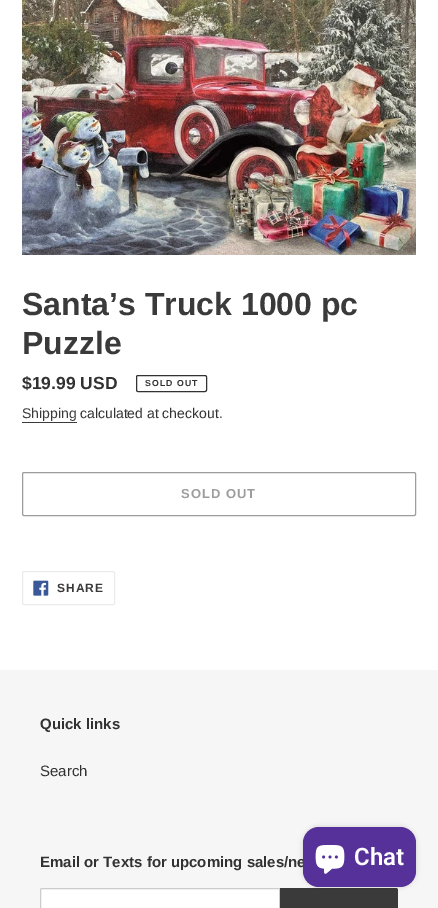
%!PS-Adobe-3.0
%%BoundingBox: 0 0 438 908
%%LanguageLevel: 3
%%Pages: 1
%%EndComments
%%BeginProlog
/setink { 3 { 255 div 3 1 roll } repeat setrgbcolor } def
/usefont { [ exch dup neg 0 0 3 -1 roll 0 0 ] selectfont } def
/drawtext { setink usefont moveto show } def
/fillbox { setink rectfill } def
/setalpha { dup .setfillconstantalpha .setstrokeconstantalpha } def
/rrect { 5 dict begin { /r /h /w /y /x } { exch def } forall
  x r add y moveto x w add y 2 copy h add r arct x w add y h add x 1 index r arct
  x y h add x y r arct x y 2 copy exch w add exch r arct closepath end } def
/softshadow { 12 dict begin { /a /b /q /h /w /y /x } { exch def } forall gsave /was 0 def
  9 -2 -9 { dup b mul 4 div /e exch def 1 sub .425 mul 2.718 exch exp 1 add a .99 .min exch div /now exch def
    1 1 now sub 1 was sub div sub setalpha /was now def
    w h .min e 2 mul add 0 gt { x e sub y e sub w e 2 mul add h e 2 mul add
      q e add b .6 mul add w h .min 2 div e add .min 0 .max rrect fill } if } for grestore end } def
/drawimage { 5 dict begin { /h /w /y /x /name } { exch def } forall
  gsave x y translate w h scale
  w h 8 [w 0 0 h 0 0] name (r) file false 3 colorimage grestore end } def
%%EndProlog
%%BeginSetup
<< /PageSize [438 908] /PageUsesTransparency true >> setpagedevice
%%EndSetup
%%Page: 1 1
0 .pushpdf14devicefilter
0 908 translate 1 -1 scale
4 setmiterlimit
0 0 438 908 255 255 255 fillbox
(assets/img1.rgb) 22 0 394 255 drawimage
(Santa’s Truck 1000 pc) 22 315 /LiberationSans-Bold 32 58 58 58 drawtext
(Puzzle) 22 354 /LiberationSans-Bold 32 58 58 58 drawtext
($19.99 USD) 22 389 /LiberationSans-Bold 17.5 51 50 50 drawtext
136.5 375.5 70 16 1.5 rrect stroke
/LiberationSans-Bold 8.75 usefont
145 386 moveto 1 0 (SOLD OUT) ashow
(Shipping) 22 418 /LiberationSans-Regular 14 58 58 58 drawtext
22 422 55 1 58 58 58 fillbox
(calculated at checkout.) 80 418 /LiberationSans-Regular 14 51 50 50 drawtext
157 157 157 setink
22.5 472.5 393 43 1.5 rrect stroke
/LiberationSans-Bold 13 usefont
181 498 moveto 1 0 (SOLD OUT) ashow
235 235 235 setink
22.5 571.5 92 33 1.5 rrect stroke
(assets/img2.rgb) 33 580 16 16 drawimage
/LiberationSans-Bold 12 usefont
58 58 58 setink
57 592 moveto 1 0 (SHARE) ashow
0 670 438 238 246 246 246 fillbox
(Quick links) 40 729 /LiberationSans-Bold 15 51 50 50 drawtext
(Search) 40 776 /LiberationSans-Regular 15 51 50 50 drawtext
(Email or Texts for upcoming sales/ne) 40 867 /LiberationSans-Bold 15 51 50 50 drawtext
255 255 255 setink
42 888.5 moveto 279.5 888.5 lineto 279.5 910.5 lineto 42 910.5 lineto 41 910.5 40.5 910 40.5 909 curveto 40.5 890 lineto 40.5 889 41 888.5 42 888.5 curveto closepath gsave fill grestore
204 204 204 setink
stroke
58 58 58 setink
280 888 moveto 396 888 lineto 397 888 398 889 398 890 curveto 398 908 lineto 398 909 397 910 396 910 curveto 280 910 lineto closepath fill
0 0 0 setink
303 827 113 60 16 2.5 0.15 softshadow
86 49 153 setink
303 827 113 60 16 rrect fill
(assets/img3.rgb) 315 845 30 29 drawimage
(Chat) 354 865 /Roboto-SemiBold 24 255 255 255 drawtext
.poppdf14devicefilter showpage
%%EOF
